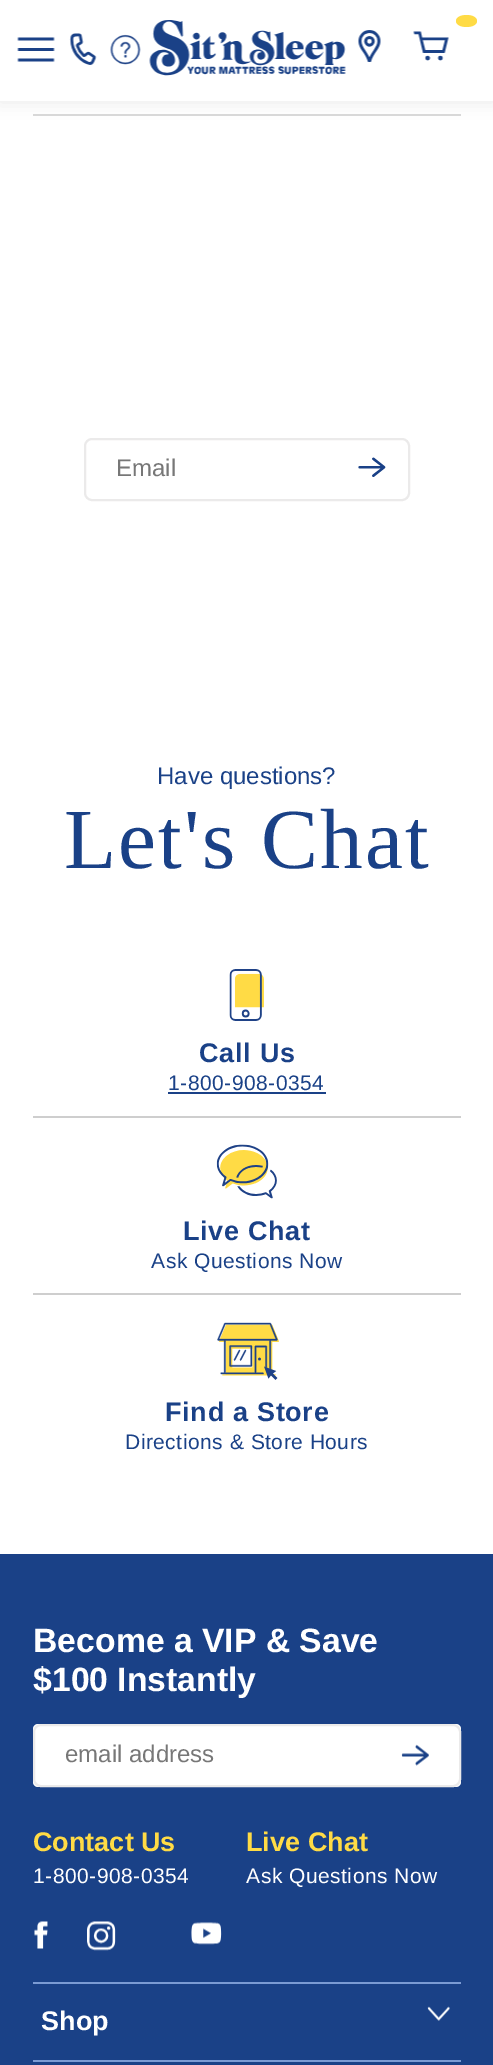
%!PS-Adobe-3.0
%%BoundingBox: 0 0 493 2065
%%LanguageLevel: 3
%%Pages: 1
%%EndComments
%%BeginProlog
/setink { 3 { 255 div 3 1 roll } repeat setrgbcolor } def
/usefont { [ exch dup neg 0 0 3 -1 roll 0 0 ] selectfont } def
/drawtext { setink usefont moveto show } def
/fillbox { setink rectfill } def
/setalpha { dup .setfillconstantalpha .setstrokeconstantalpha } def
/rrect { 5 dict begin { /r /h /w /y /x } { exch def } forall
  x r add y moveto x w add y 2 copy h add r arct x w add y h add x 1 index r arct
  x y h add x y r arct x y 2 copy exch w add exch r arct closepath end } def
/softshadow { 12 dict begin { /a /b /q /h /w /y /x } { exch def } forall gsave /was 0 def
  9 -2 -9 { dup b mul 4 div /e exch def 1 sub .425 mul 2.718 exch exp 1 add a .99 .min exch div /now exch def
    1 1 now sub 1 was sub div sub setalpha /was now def
    w h .min e 2 mul add 0 gt { x e sub y e sub w e 2 mul add h e 2 mul add
      q e add b .6 mul add w h .min 2 div e add .min 0 .max rrect fill } if } for grestore end } def
/drawimage { 5 dict begin { /h /w /y /x /name } { exch def } forall
  gsave x y translate w h scale
  w h 8 [w 0 0 h 0 0] name (r) file false 3 colorimage grestore end } def
%%EndProlog
%%BeginSetup
<< /PageSize [493 2065] /PageUsesTransparency true >> setpagedevice
%%EndSetup
%%Page: 1 1
0 .pushpdf14devicefilter
0 2065 translate 1 -1 scale
4 setmiterlimit
0 0 493 2065 255 255 255 fillbox
33 114 428 2 216 216 216 fillbox
189 189 189 setink
0 2 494 100 0 8 0.34 softshadow
0 0 493 101 255 255 255 fillbox
(assets/img1.rgb) 17 37 38 25 drawimage
(assets/img2.rgb) 69 33 28 32 drawimage
(assets/img3.rgb) 110 34 31 31 drawimage
(assets/img4.rgb) 149 20 197 56 drawimage
(assets/img5.rgb) 358 30 23 32 drawimage
255 219 69 setink
466.5 15 moveto 472.5 15 477 17.5 477 21 curveto 477 24.5 472.5 27 466.5 27 curveto 460.5 27 456 24.5 456 21 curveto 456 17.5 460.5 15 466.5 15 curveto closepath fill
(assets/img6.rgb) 413 31 36 30 drawimage
235 234 234 setink
2 setlinewidth
85 439 324 61 7 rrect stroke
(Email) 116 476 /LiberationSans-Regular 24 119 119 119 drawtext
(assets/img7.rgb) 358 457 28 20 drawimage
(Have questions?) 157 784 /LiberationSans-Regular 24 26 65 135 drawtext
/LiberationSerif-Regular 85.5 usefont
64 868 moveto 2.1 0 (Let's Chat) ashow
33 1116 428 2 206 206 206 fillbox
(assets/img8.rgb) 229 969 35 52 drawimage
/LiberationSans-Bold 27 usefont
26 65 135 setink
199 1062 moveto 0.7 0 (Call Us) ashow
/LiberationSans-Regular 21 usefont
168 1090 moveto 0.5 0 (1-800-908-0354) ashow
168 1092 158 2 26 65 135 fillbox
33 1293 428 2 206 206 206 fillbox
(assets/img9.rgb) 216 1144 61 55 drawimage
/LiberationSans-Bold 27 usefont
26 65 135 setink
183 1240 moveto 0.7 0 (Live Chat) ashow
/LiberationSans-Regular 21 usefont
151 1268 moveto 0.5 0 (Ask Questions Now) ashow
(assets/img10.rgb) 217 1322 62 58 drawimage
/LiberationSans-Bold 27 usefont
165 1421 moveto 0.7 0 (Find a Store) ashow
/LiberationSans-Regular 21 usefont
125 1449 moveto 0.5 0 (Directions & Store Hours) ashow
0 1554 493 511 26 65 135 fillbox
(Become a VIP & Save) 33 1652 /LiberationSans-Bold 33.75 255 255 255 drawtext
($100 Instantly) 33 1691 /LiberationSans-Bold 33.75 255 255 255 drawtext
33 1724 428 63 5 rrect fill
235 234 234 setink
34 1725 426 61 7 rrect stroke
(email address) 65 1762 /LiberationSans-Regular 24 119 119 119 drawtext
(assets/img11.rgb) 401 1744 28 22 drawimage
(Contact Us) 33 1851 /LiberationSans-Bold 27 255 219 69 drawtext
/LiberationSans-Regular 21 usefont
255 255 255 setink
33 1883 moveto 0.5 0 (1-800-908-0354) ashow
(Live Chat) 246 1851 /LiberationSans-Bold 27 255 219 69 drawtext
/LiberationSans-Regular 21 usefont
255 255 255 setink
246 1883 moveto 0.5 0 (Ask Questions Now) ashow
(assets/img12.rgb) 34 1921 14 28 drawimage
(assets/img13.rgb) 87 1921 29 30 drawimage
(assets/img14.rgb) 191 1922 31 23 drawimage
33 1982 428 2 123 155 211 fillbox
(Shop) 41 2030 /LiberationSans-Bold 27 255 255 255 drawtext
(assets/img15.rgb) 427 2006 23 15 drawimage
33 2060 428 2 123 155 211 fillbox
.poppdf14devicefilter showpage
%%EOF
